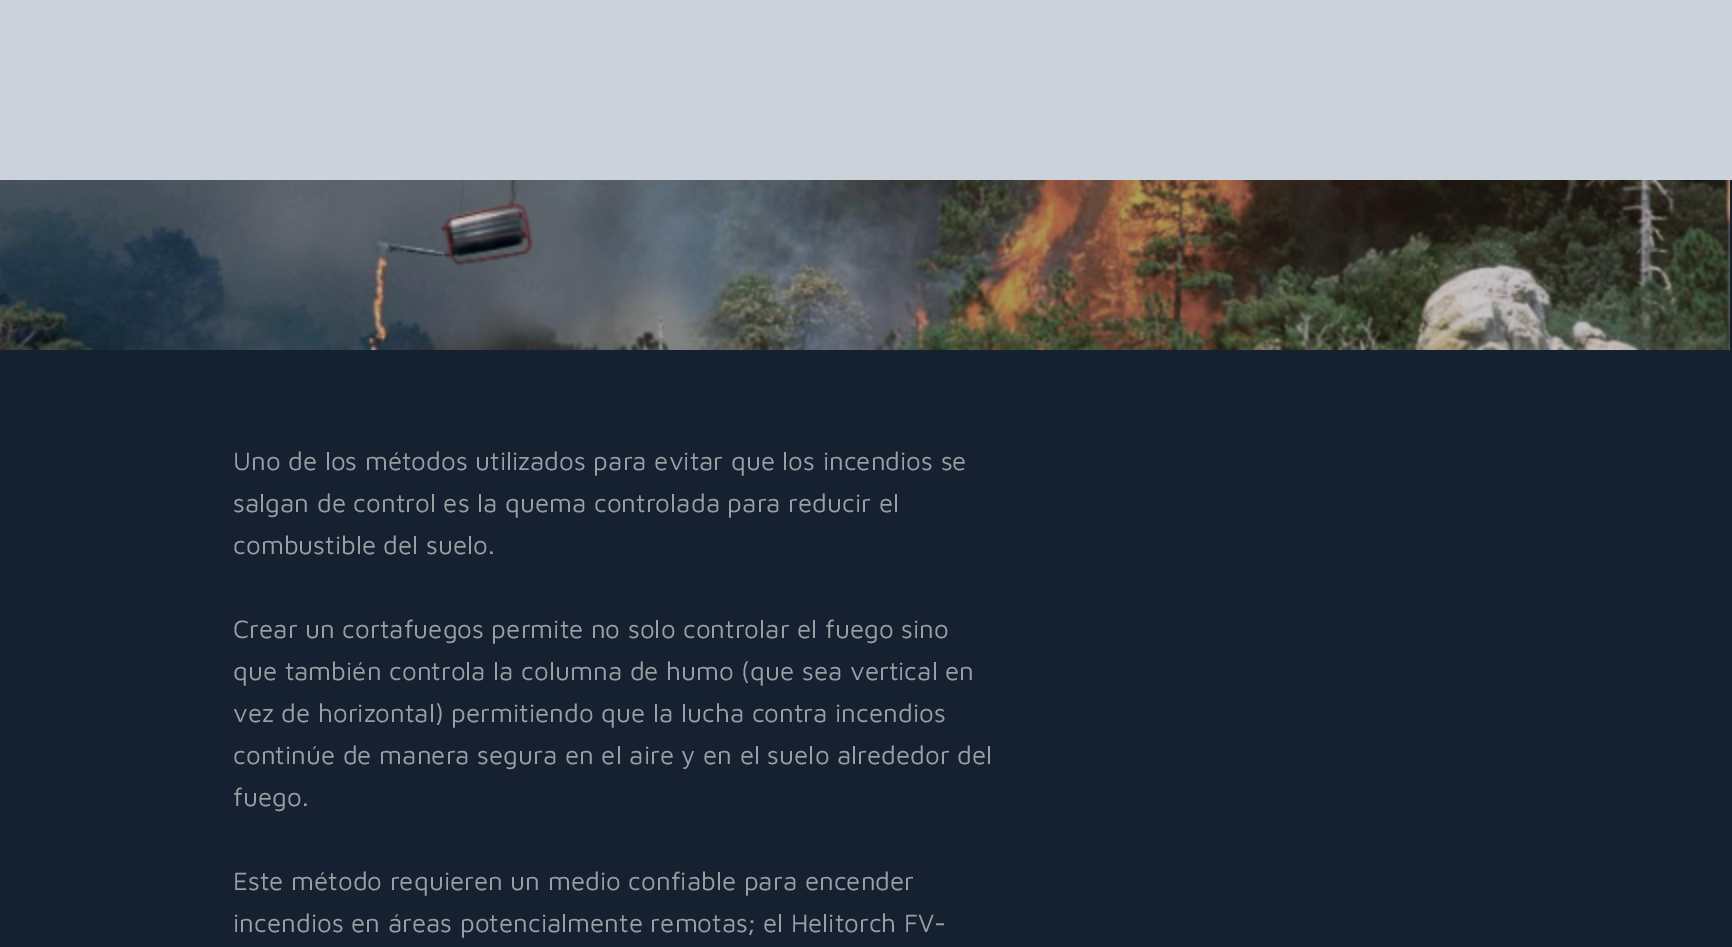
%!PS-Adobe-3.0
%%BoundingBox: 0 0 1732 947
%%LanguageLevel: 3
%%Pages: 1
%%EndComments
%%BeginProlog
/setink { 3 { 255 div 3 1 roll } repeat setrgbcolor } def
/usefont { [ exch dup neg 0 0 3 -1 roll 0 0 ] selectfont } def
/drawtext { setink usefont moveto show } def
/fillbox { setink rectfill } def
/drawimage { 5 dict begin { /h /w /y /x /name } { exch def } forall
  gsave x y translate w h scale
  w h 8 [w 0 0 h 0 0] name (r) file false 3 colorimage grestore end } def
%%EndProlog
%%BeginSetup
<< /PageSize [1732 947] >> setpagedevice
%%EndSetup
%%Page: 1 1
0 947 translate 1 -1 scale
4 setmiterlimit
0 0 1732 947 21 32 48 fillbox
0 0 1732 180 204 210 217 fillbox
(assets/img1.rgb) 0 180 1730 170 drawimage
(Uno de los métodos utilizados para evitar que los incendios se) 233 470 /MavenPro-Regular 26 155 159 164 drawtext
(salgan de control es la quema controlada para reducir el) 233 512 /MavenPro-Regular 26 155 159 164 drawtext
(combustible del suelo.) 233 554 /MavenPro-Regular 26 155 159 164 drawtext
(Crear un cortafuegos permite no solo controlar el fuego sino) 233 638 /MavenPro-Regular 26 155 159 164 drawtext
(que también controla la columna de humo \(que sea vertical en) 233 680 /MavenPro-Regular 26 155 159 164 drawtext
(vez de horizontal\) permitiendo que la lucha contra incendios) 233 722 /MavenPro-Regular 26 155 159 164 drawtext
(continúe de manera segura en el aire y en el suelo alrededor del) 233 764 /MavenPro-Regular 26 155 159 164 drawtext
(fuego.) 233 806 /MavenPro-Regular 26 155 159 164 drawtext
(Este método requieren un medio confiable para encender) 233 890 /MavenPro-Regular 26 155 159 164 drawtext
(incendios en áreas potencialmente remotas; el Helitorch FV-) 233 932 /MavenPro-Regular 26 155 159 164 drawtext
showpage
%%EOF
